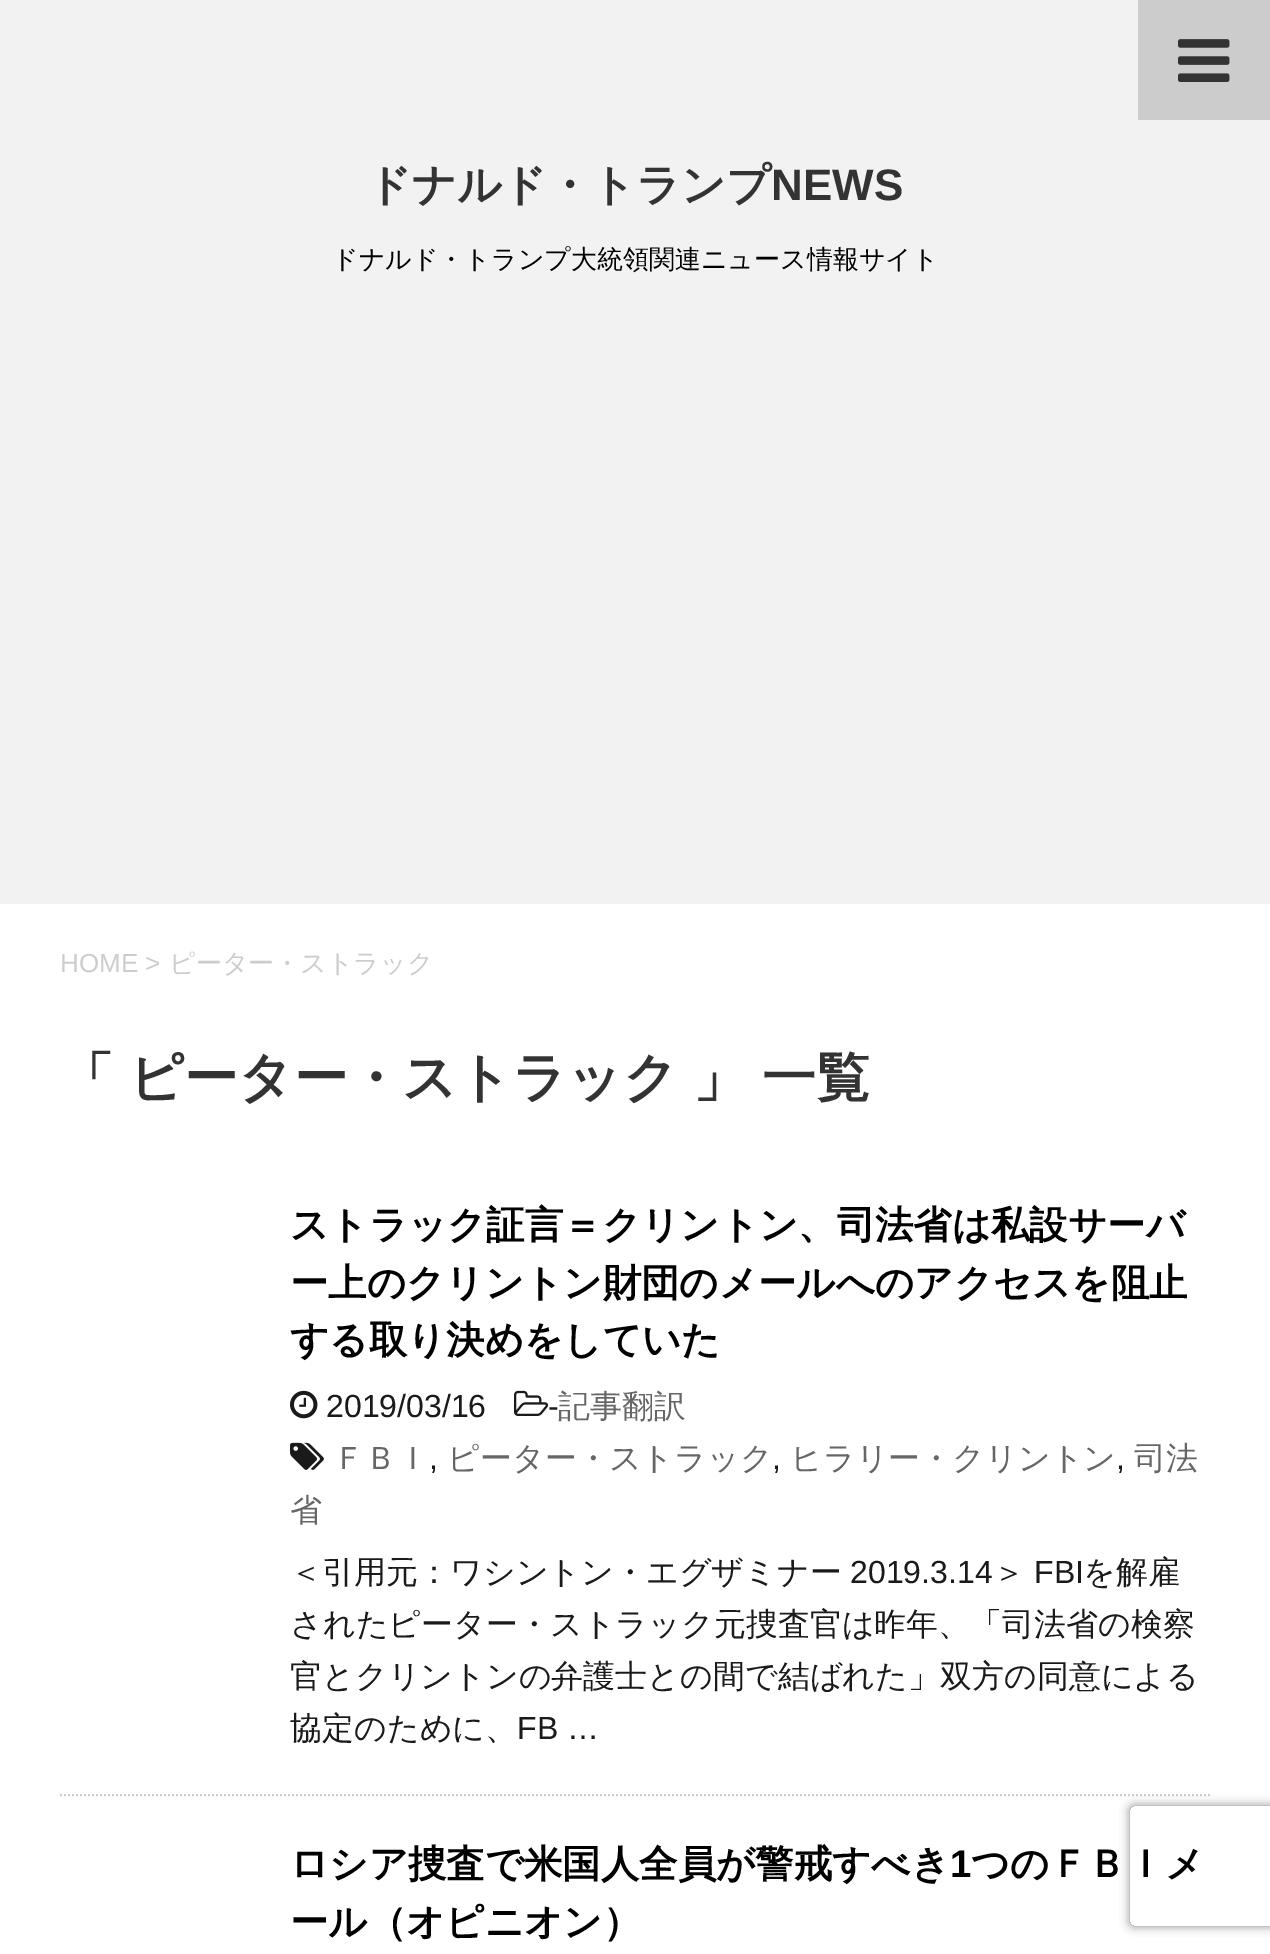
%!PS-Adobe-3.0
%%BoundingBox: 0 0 1270 1954
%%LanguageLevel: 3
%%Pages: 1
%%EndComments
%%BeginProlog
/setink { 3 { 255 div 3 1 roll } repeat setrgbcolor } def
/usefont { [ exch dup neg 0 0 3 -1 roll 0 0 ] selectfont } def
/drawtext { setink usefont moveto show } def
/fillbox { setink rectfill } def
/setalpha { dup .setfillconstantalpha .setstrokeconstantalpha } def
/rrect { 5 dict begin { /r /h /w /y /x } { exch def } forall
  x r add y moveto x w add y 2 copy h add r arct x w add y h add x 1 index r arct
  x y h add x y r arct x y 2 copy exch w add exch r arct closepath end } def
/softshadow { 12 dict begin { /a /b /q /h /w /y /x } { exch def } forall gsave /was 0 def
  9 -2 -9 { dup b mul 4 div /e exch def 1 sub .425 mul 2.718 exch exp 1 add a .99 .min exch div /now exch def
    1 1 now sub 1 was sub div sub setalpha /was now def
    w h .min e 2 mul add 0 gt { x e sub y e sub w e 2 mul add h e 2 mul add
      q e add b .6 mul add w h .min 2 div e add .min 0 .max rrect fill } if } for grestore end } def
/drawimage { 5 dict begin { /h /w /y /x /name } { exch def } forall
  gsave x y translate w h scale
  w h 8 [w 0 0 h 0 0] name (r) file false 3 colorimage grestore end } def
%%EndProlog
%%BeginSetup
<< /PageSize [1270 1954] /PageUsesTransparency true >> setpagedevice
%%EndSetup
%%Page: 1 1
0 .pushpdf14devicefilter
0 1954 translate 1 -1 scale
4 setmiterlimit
0 0 1270 1954 242 242 242 fillbox
1138 0 132 120 204 204 204 fillbox
(assets/img1.rgb) 1178 39 52 43 drawimage
(ドナルド・トランプ) 367 200 /WenQuanYiZenHei-Bold 44 51 51 51 drawtext
(NEWS) 771 200 /LiberationSans-Bold 44 51 51 51 drawtext
(ドナルド・トランプ大統領関連ニュース情報サイト) 332 268 /WenQuanYiZenHei-Medium 26 0 0 0 drawtext
0 904 1270 1050 255 255 255 fillbox
(HOME >) 60 972 /LiberationSans-Regular 26 204 204 204 drawtext
(ピーター・ストラック) 169 972 /WenQuanYiZenHei-Medium 26 204 204 204 drawtext
(「) 60 1096 /WenQuanYiZenHei-Bold 54 51 51 51 drawtext
(ピーター・ストラック) 129 1096 /WenQuanYiZenHei-Bold 54 51 51 51 drawtext
693 1096 moveto -1 0 32 (」 一覧) widthshow
204 204 204 setink
2 setlinewidth
[2 2] 0 setdash
60 1795 moveto 1210 1795 lineto stroke
(ストラック証言＝クリントン、司法省は私設サーバ) 290 1238 /WenQuanYiZenHei-Bold 38.4 0 0 0 drawtext
(ー上のクリントン財団のメールへのアクセスを阻止) 290 1296 /WenQuanYiZenHei-Bold 38.4 0 0 0 drawtext
(する取り決めをしていた) 290 1353 /WenQuanYiZenHei-Bold 38.4 0 0 0 drawtext
(assets/img2.rgb) 290 1390 28 29 drawimage
(assets/img3.rgb) 514 1390 35 26 drawimage
(-) 548 1417 /LiberationSans-Regular 32 26 26 26 drawtext
(記事翻訳) 558 1417 /WenQuanYiZenHei-Medium 32 102 102 102 drawtext
(assets/img4.rgb) 290 1442 34 28 drawimage
(ＦＢＩ) 333 1469 /WenQuanYiZenHei-Medium 32 102 102 102 drawtext
(,) 429 1469 /LiberationSans-Regular 32 26 26 26 drawtext
(ピーター・ストラック) 447 1469 /WenQuanYiZenHei-Medium 32 102 102 102 drawtext
(,) 772 1469 /LiberationSans-Regular 32 26 26 26 drawtext
(ヒラリー・クリントン) 790 1469 /WenQuanYiZenHei-Medium 32 102 102 102 drawtext
(,) 1116 1469 /LiberationSans-Regular 32 26 26 26 drawtext
(司法) 1134 1469 /WenQuanYiZenHei-Medium 32 102 102 102 drawtext
(省) 290 1521 /WenQuanYiZenHei-Medium 32 102 102 102 drawtext
(2019/03/16) 326 1417 /LiberationSans-Regular 32 26 26 26 drawtext
(＜引用元：ワシントン・エグザミナー) 290 1583 /WenQuanYiZenHei-Medium 32 26 26 26 drawtext
(2019.3.14) 850 1583 /LiberationSans-Regular 32 26 26 26 drawtext
(＞) 993 1583 /WenQuanYiZenHei-Medium 32 26 26 26 drawtext
(FBI) 1034 1583 /LiberationSans-Regular 32 26 26 26 drawtext
(を解雇) 1083 1583 /WenQuanYiZenHei-Medium 32 26 26 26 drawtext
(されたピーター・ストラック元捜査官は昨年、「司法省の検察) 290 1635 /WenQuanYiZenHei-Medium 32 26 26 26 drawtext
(官とクリントンの弁護士との間で結ばれた」双方の同意による) 290 1687 /WenQuanYiZenHei-Medium 32 26 26 26 drawtext
(協定のために、) 290 1739 /WenQuanYiZenHei-Medium 32 26 26 26 drawtext
(FB …) 517 1739 /LiberationSans-Regular 32 26 26 26 drawtext
(ロシア捜査で米国人全員が警戒すべき) 290 1877 /WenQuanYiZenHei-Bold 38.4 0 0 0 drawtext
(1) 950 1877 /LiberationSans-Bold 38.4 0 0 0 drawtext
(つのＦＢＩメ) 971 1877 /WenQuanYiZenHei-Bold 38.4 0 0 0 drawtext
(ール（オピニオン）) 290 1935 /WenQuanYiZenHei-Bold 38.4 0 0 0 drawtext
gsave
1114 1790 moveto 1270 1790 lineto 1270 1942 lineto 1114 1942 lineto closepath 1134 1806 moveto 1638 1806 lineto 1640 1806 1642 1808 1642 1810 curveto 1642 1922 lineto 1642 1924 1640 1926 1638 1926 curveto 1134 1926 lineto 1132 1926 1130 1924 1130 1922 curveto 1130 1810 lineto 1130 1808 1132 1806 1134 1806 curveto closepath eoclip newpath
128 128 128 setink
1130 1806 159 120 4 5 1 softshadow
grestore
.poppdf14devicefilter showpage
%%EOF
